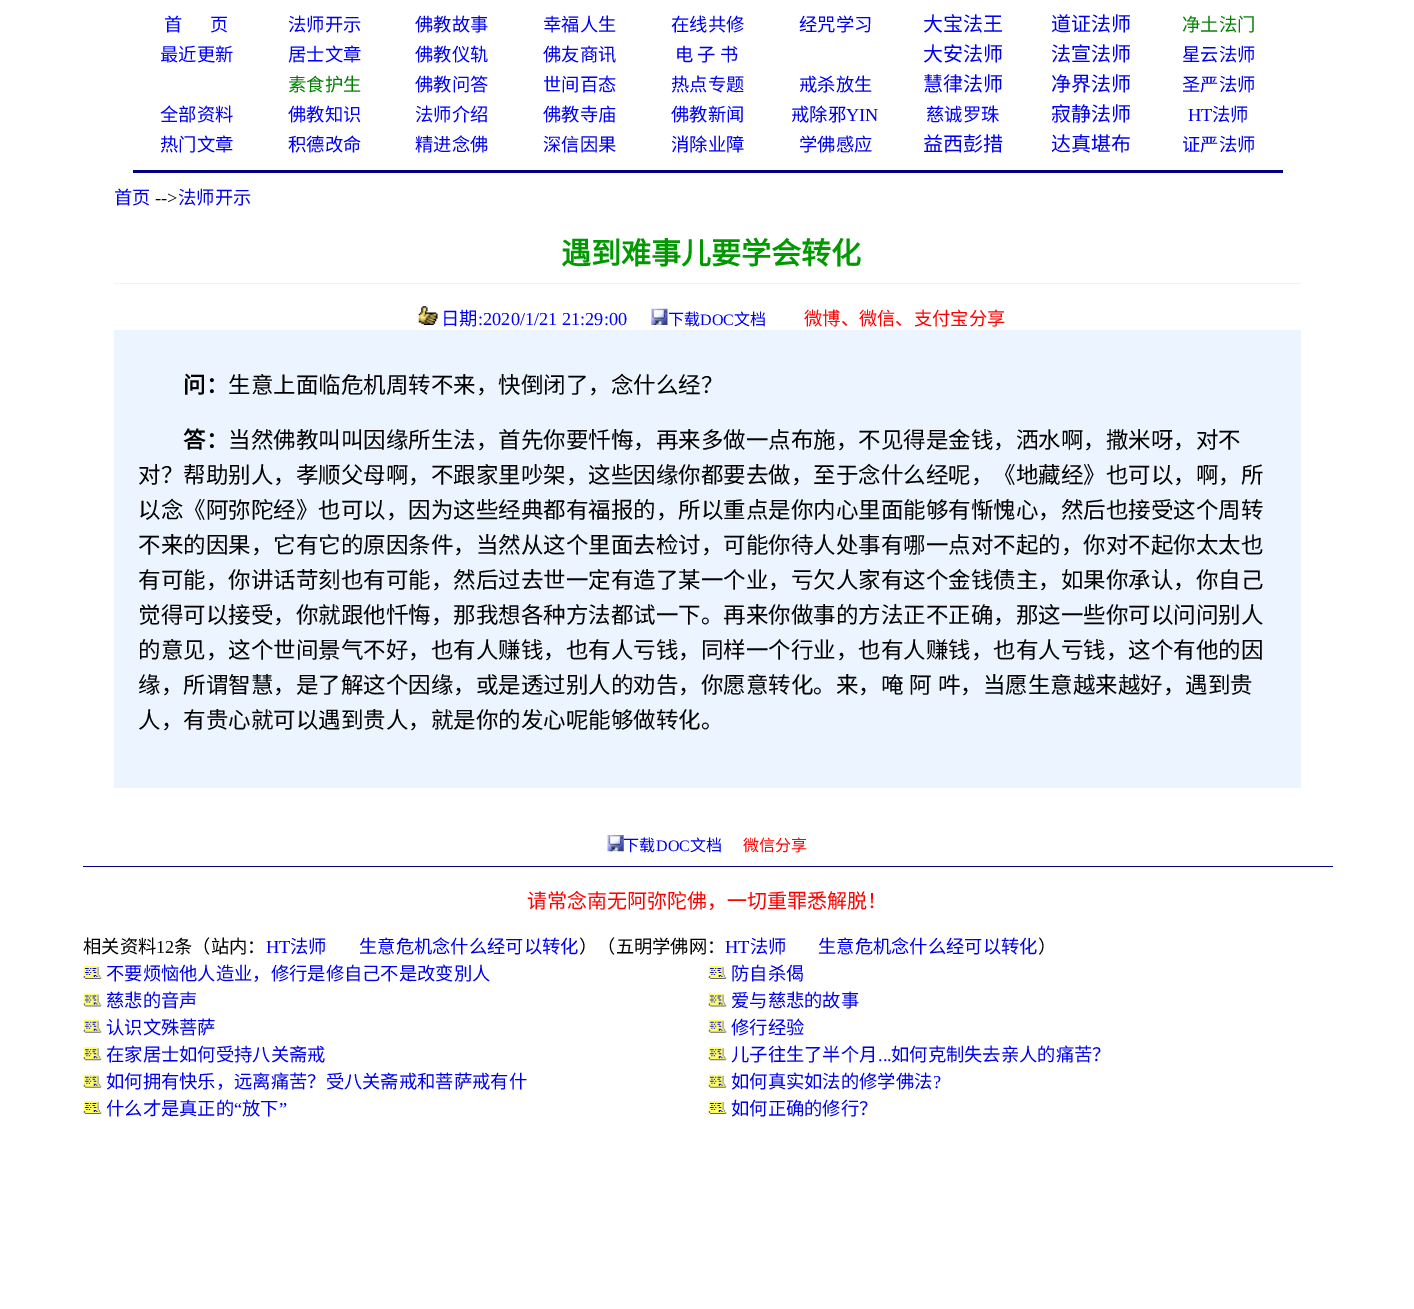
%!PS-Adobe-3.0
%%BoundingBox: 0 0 1414 1309
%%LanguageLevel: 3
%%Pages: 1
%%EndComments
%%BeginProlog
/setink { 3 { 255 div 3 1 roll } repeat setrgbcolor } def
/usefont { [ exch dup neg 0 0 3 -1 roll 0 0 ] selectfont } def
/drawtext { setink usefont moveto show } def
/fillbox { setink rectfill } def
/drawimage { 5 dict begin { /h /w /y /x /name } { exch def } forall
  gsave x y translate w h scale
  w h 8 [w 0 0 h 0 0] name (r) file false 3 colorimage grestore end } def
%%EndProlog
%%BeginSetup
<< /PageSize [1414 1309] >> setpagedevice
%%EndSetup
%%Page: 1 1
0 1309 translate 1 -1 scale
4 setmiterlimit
0 0 1414 1309 255 255 255 fillbox
(首) 164 31 /NotoSansCJKSC-Regular 18.3 0 0 255 drawtext
(页) 210 31 /NotoSansCJKSC-Regular 18.3 0 0 255 drawtext
(法师开示) 288 31 /NotoSansCJKSC-Regular 18.3 0 0 238 drawtext
(佛教故事) 415 31 /NotoSansCJKSC-Regular 18.3 0 0 238 drawtext
(幸福人生) 543 31 /NotoSansCJKSC-Regular 18.3 0 0 238 drawtext
(在线共修) 671 31 /NotoSansCJKSC-Regular 18.3 0 0 238 drawtext
(经咒学习) 799 31 /NotoSansCJKSC-Regular 18.3 0 0 238 drawtext
(大宝法王) 923 31 /NotoSansCJKSC-Regular 20 0 0 238 drawtext
(道证法师) 1051 31 /NotoSansCJKSC-Regular 20 0 0 238 drawtext
(净土法门) 1182 31 /NotoSansCJKSC-Regular 18.3 0 128 0 drawtext
(最近更新) 160 61 /NotoSansCJKSC-Regular 18.3 0 0 255 drawtext
(居士文章) 288 61 /NotoSansCJKSC-Regular 18.3 0 0 255 drawtext
(佛教仪轨) 415 61 /NotoSansCJKSC-Regular 18.3 0 0 255 drawtext
(佛友商讯) 543 61 /NotoSansCJKSC-Regular 18.3 0 0 238 drawtext
(电 子 书) 675 61 /NotoSansCJKSC-Regular 18.3 0 0 238 drawtext
(大安法师) 923 61 /NotoSansCJKSC-Regular 20 0 0 238 drawtext
(法宣法师) 1051 61 /NotoSansCJKSC-Regular 20 0 0 238 drawtext
(星云法师) 1182 61 /NotoSansCJKSC-Regular 18.3 0 0 238 drawtext
(素食护生) 288 91 /NotoSansCJKSC-Regular 18.3 0 128 0 drawtext
(佛教问答) 415 91 /NotoSansCJKSC-Regular 18.3 0 0 255 drawtext
(世间百态) 543 91 /NotoSansCJKSC-Regular 18.3 0 0 255 drawtext
(热点专题) 671 91 /NotoSansCJKSC-Regular 18.3 0 0 238 drawtext
(戒杀放生) 799 91 /NotoSansCJKSC-Regular 18.3 0 0 238 drawtext
(慧律法师) 923 91 /NotoSansCJKSC-Regular 20 0 0 238 drawtext
(净界法师) 1051 91 /NotoSansCJKSC-Regular 20 0 0 238 drawtext
(圣严法师) 1182 91 /NotoSansCJKSC-Regular 18.3 0 0 238 drawtext
(全部资料) 160 121 /NotoSansCJKSC-Regular 18.3 0 0 238 drawtext
(佛教知识) 288 121 /NotoSansCJKSC-Regular 18.3 0 0 255 drawtext
(法师介绍) 415 121 /NotoSansCJKSC-Regular 18.3 0 0 255 drawtext
(佛教寺庙) 543 121 /NotoSansCJKSC-Regular 18.3 0 0 255 drawtext
(佛教新闻) 671 121 /NotoSansCJKSC-Regular 18.3 0 0 255 drawtext
(戒除邪) 791 121 /NotoSansCJKSC-Regular 18.3 0 0 238 drawtext
(YIN) 846 121 /LiberationSerif-Regular 18.3 0 0 238 drawtext
(慈诚罗珠) 926 121 /NotoSansCJKSC-Regular 18.3 0 0 255 drawtext
(寂静法师) 1051 121 /NotoSansCJKSC-Regular 20 0 0 238 drawtext
(HT) 1188 121 /LiberationSerif-Regular 18.3 0 0 238 drawtext
(法师) 1212 121 /NotoSansCJKSC-Regular 18.3 0 0 238 drawtext
(热门文章) 160 151 /NotoSansCJKSC-Regular 18.3 0 0 238 drawtext
(积德改命) 288 151 /NotoSansCJKSC-Regular 18.3 0 0 238 drawtext
(精进念佛) 415 151 /NotoSansCJKSC-Regular 18.3 0 0 238 drawtext
(深信因果) 543 151 /NotoSansCJKSC-Regular 18.3 0 0 238 drawtext
(消除业障) 671 151 /NotoSansCJKSC-Regular 18.3 0 0 238 drawtext
(学佛感应) 799 151 /NotoSansCJKSC-Regular 18.3 0 0 238 drawtext
(益西彭措) 923 151 /NotoSansCJKSC-Regular 20 0 0 238 drawtext
(达真堪布) 1051 151 /NotoSansCJKSC-Regular 20 0 0 238 drawtext
(证严法师) 1182 151 /NotoSansCJKSC-Regular 18.3 0 0 238 drawtext
133 170 1150 3 0 0 128 fillbox
(首页) 114 204 /NotoSansCJKSC-Regular 18.3 0 0 238 drawtext
(-->) 155 204 /LiberationSerif-Regular 18.3 0 0 0 drawtext
(法师开示) 178 204 /NotoSansCJKSC-Regular 18.3 0 0 238 drawtext
(遇到难事儿要学会转化) 561 264 /NotoSansCJKSC-Bold 30 0 153 0 drawtext
114 283 1187 1 236 245 255 fillbox
(assets/img1.rgb) 418 306 20 19 drawimage
(日期) 441 325 /NotoSansCJKSC-Regular 18.3 0 0 255 drawtext
(:2020/1/21 21:29:00) 478 325 /LiberationSerif-Regular 18.3 0 0 255 drawtext
(assets/img2.rgb) 651 308 17 17 drawimage
(下载) 668 325 /NotoSansCJKSC-Regular 16 0 0 238 drawtext
(DOC) 700 325 /LiberationSerif-Regular 16 0 0 238 drawtext
(文档) 734 325 /NotoSansCJKSC-Regular 16 0 0 238 drawtext
(微博、微信、支付宝分享) 804 325 /NotoSansCJKSC-Regular 18.3 255 0 0 drawtext
114 330 1187 458 236 245 255 fillbox
(问：) 183 393 /NotoSansCJKSC-Bold 22.5 0 0 0 drawtext
(生意上面临危机周转不来，快倒闭了，念什么经？) 228 393 /NotoSansCJKSC-Regular 22.5 0 0 0 drawtext
(答：) 183 448 /NotoSansCJKSC-Bold 22.5 0 0 0 drawtext
(当然佛教叫叫因缘所生法，首先你要忏悔，再来多做一点布施，不见得是金钱，洒水啊，撒米呀，对不) 228 448 /NotoSansCJKSC-Regular 22.5 0 0 0 drawtext
(对？帮助别人，孝顺父母啊，不跟家里吵架，这些因缘你都要去做，至于念什么经呢，《地藏经》也可以，啊，所) 138 483 /NotoSansCJKSC-Regular 22.5 0 0 0 drawtext
(以念《阿弥陀经》也可以，因为这些经典都有福报的，所以重点是你内心里面能够有惭愧心，然后也接受这个周转) 138 518 /NotoSansCJKSC-Regular 22.5 0 0 0 drawtext
(不来的因果，它有它的原因条件，当然从这个里面去检讨，可能你待人处事有哪一点对不起的，你对不起你太太也) 138 553 /NotoSansCJKSC-Regular 22.5 0 0 0 drawtext
(有可能，你讲话苛刻也有可能，然后过去世一定有造了某一个业，亏欠人家有这个金钱债主，如果你承认，你自己) 138 588 /NotoSansCJKSC-Regular 22.5 0 0 0 drawtext
(觉得可以接受，你就跟他忏悔，那我想各种方法都试一下。再来你做事的方法正不正确，那这一些你可以问问别人) 138 623 /NotoSansCJKSC-Regular 22.5 0 0 0 drawtext
(的意见，这个世间景气不好，也有人赚钱，也有人亏钱，同样一个行业，也有人赚钱，也有人亏钱，这个有他的因) 138 658 /NotoSansCJKSC-Regular 22.5 0 0 0 drawtext
138 693 moveto 1 0 32 (缘，所谓智慧，是了解这个因缘，或是透过别人的劝告，你愿意转化。来，唵 阿 吽，当愿生意越来越好，遇到贵) widthshow
(人，有贵心就可以遇到贵人，就是你的发心呢能够做转化。) 138 728 /NotoSansCJKSC-Regular 22.5 0 0 0 drawtext
(assets/img3.rgb) 607 835 17 17 drawimage
(下载) 623 851 /NotoSansCJKSC-Regular 16 0 0 238 drawtext
(DOC) 656 851 /LiberationSerif-Regular 16 0 0 238 drawtext
(文档) 690 851 /NotoSansCJKSC-Regular 16 0 0 238 drawtext
(微信分享) 743 851 /NotoSansCJKSC-Regular 16 255 0 0 drawtext
83 866 1250 1 0 0 128 fillbox
(请常念南无阿弥陀佛，一切重罪悉解脱！) 527 908 /NotoSansCJKSC-Regular 20 255 0 0 drawtext
(相关资料) 83 953 /NotoSansCJKSC-Regular 18.3 0 0 0 drawtext
(12) 156 953 /LiberationSerif-Regular 18.3 0 0 0 drawtext
(条（站内：) 174 953 /NotoSansCJKSC-Regular 18.3 0 0 0 drawtext
(HT) 266 953 /LiberationSerif-Regular 18.3 0 0 238 drawtext
(法师) 290 953 /NotoSansCJKSC-Regular 18.3 0 0 238 drawtext
(生意危机念什么经可以转化) 359 953 /NotoSansCJKSC-Regular 18.3 0 0 238 drawtext
(）（五明学佛网：) 579 953 /NotoSansCJKSC-Regular 18.3 0 0 0 drawtext
(HT) 725 953 /LiberationSerif-Regular 18.3 0 0 238 drawtext
(法师) 750 953 /NotoSansCJKSC-Regular 18.3 0 0 238 drawtext
(生意危机念什么经可以转化) 818 953 /NotoSansCJKSC-Regular 18.3 0 0 238 drawtext
(）) 1038 953 /NotoSansCJKSC-Regular 18.3 0 0 0 drawtext
(assets/img4.rgb) 83 966 19 13 drawimage
(不要烦恼他人造业，修行是修自己不是改变別人) 106 980 /NotoSansCJKSC-Regular 18.3 0 0 238 drawtext
(assets/img4.rgb) 708 966 19 13 drawimage
(防自杀偈) 731 980 /NotoSansCJKSC-Regular 18.3 0 0 238 drawtext
(assets/img5.rgb) 83 993 19 14 drawimage
(慈悲的音声) 106 1007 /NotoSansCJKSC-Regular 18.3 0 0 238 drawtext
(assets/img5.rgb) 708 993 19 14 drawimage
(爱与慈悲的故事) 731 1007 /NotoSansCJKSC-Regular 18.3 0 0 238 drawtext
(assets/img6.rgb) 83 1019 19 14 drawimage
(认识文殊菩萨) 106 1034 /NotoSansCJKSC-Regular 18.3 0 0 238 drawtext
(assets/img6.rgb) 708 1019 19 14 drawimage
(修行经验) 731 1034 /NotoSansCJKSC-Regular 18.3 0 0 238 drawtext
(assets/img7.rgb) 83 1047 19 14 drawimage
(在家居士如何受持八关斋戒) 106 1061 /NotoSansCJKSC-Regular 18.3 0 0 238 drawtext
(assets/img7.rgb) 708 1047 19 14 drawimage
(儿子往生了半个月) 731 1061 /NotoSansCJKSC-Regular 18.3 0 0 238 drawtext
(...) 878 1061 /LiberationSerif-Regular 18.3 0 0 238 drawtext
(如何克制失去亲人的痛苦？) 891 1061 /NotoSansCJKSC-Regular 18.3 0 0 238 drawtext
(assets/img6.rgb) 83 1074 19 14 drawimage
(如何拥有快乐，远离痛苦？受八关斋戒和菩萨戒有什) 106 1088 /NotoSansCJKSC-Regular 18.3 0 0 238 drawtext
(assets/img6.rgb) 708 1074 19 14 drawimage
(如何真实如法的修学佛法) 731 1088 /NotoSansCJKSC-Regular 18.3 0 0 238 drawtext
(?) 933 1088 /LiberationSerif-Regular 18.3 0 0 238 drawtext
(assets/img4.rgb) 83 1101 19 13 drawimage
(什么才是真正的) 106 1115 /NotoSansCJKSC-Regular 18.3 0 0 238 drawtext
(“) 234 1115 /LiberationSerif-Regular 18.3 0 0 238 drawtext
(放下) 242 1115 /NotoSansCJKSC-Regular 18.3 0 0 238 drawtext
(”) 279 1115 /LiberationSerif-Regular 18.3 0 0 238 drawtext
(assets/img4.rgb) 708 1101 19 13 drawimage
(如何正确的修行？) 731 1115 /NotoSansCJKSC-Regular 18.3 0 0 238 drawtext
showpage
%%EOF
